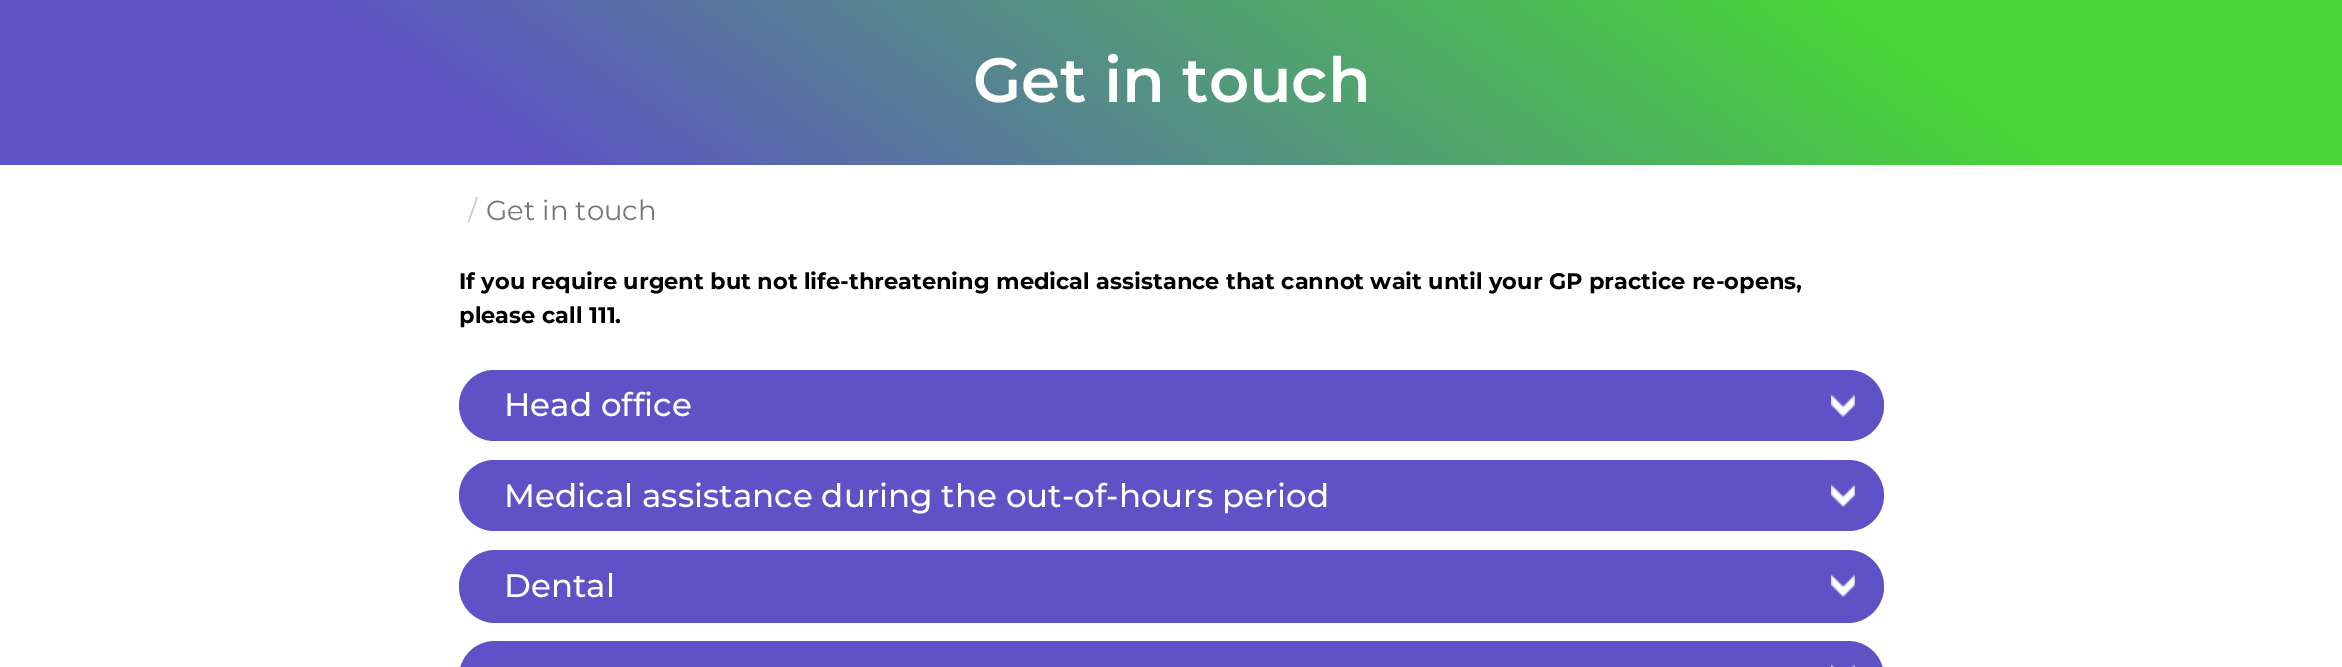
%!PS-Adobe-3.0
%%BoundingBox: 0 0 2342 667
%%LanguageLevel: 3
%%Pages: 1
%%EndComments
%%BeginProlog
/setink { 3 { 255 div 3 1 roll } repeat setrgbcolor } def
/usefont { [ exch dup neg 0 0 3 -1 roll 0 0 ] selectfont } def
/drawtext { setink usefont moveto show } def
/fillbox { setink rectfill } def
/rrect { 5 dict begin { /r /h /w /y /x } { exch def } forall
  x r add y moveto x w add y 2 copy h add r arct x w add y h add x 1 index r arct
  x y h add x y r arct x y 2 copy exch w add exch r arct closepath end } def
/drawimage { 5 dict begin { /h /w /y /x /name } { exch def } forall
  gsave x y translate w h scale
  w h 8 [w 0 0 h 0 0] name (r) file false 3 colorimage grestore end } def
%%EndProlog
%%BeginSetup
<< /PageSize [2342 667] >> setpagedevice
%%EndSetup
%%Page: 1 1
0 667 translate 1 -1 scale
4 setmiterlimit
0 0 2342 667 255 255 255 fillbox
gsave 0 0 moveto 2342 0 lineto 2342 165 lineto 0 165 lineto closepath clip newpath
<< /ShadingType 2 /ColorSpace /DeviceRGB /Coords [726 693 1616 -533] /Extend [true true] /Function << /FunctionType 3 /Domain [0 1] /Functions [<< /FunctionType 2 /Domain [0 1] /C0 [0.373 0.322 0.78] /C1 [0.373 0.322 0.78] /N 1 >> << /FunctionType 2 /Domain [0 1] /C0 [0.373 0.322 0.78] /C1 [0.282 0.839 0.22] /N 1 >> << /FunctionType 2 /Domain [0 1] /C0 [0.282 0.839 0.22] /C1 [0.282 0.839 0.22] /N 1 >>] /Bounds [0.2 0.8] /Encode [0 1 0 1 0 1] >> >> shfill grestore
(Get in touch) 973 102 /Montserrat-SemiBold 62.5 255 255 255 drawtext
(/) 468 220 /Montserrat-Regular 27.5 204 204 204 drawtext
(Get in touch) 486 220 /Montserrat-Regular 27.5 119 119 119 drawtext
(If you require urgent but not life-threatening medical assistance that cannot wait until your GP practice re-opens,) 459 289 /Montserrat-Bold 22.5 0 0 0 drawtext
(please call 111.) 459 323 /Montserrat-Bold 22.5 0 0 0 drawtext
95 82 199 setink
459 370 1425 71 35.5 rrect fill
(Head office) 504 416 /Montserrat-Medium 32.5 255 255 255 drawtext
(assets/img1.rgb) 1831 394 24 23 drawimage
95 82 199 setink
459 460 1425 71 35.5 rrect fill
(Medical assistance during the out-of-hours period) 504 507 /Montserrat-Medium 32.5 255 255 255 drawtext
(assets/img1.rgb) 1831 484 24 23 drawimage
95 82 199 setink
459 550 1425 73 36.5 rrect fill
(Dental) 504 597 /Montserrat-Medium 32.5 255 255 255 drawtext
(assets/img1.rgb) 1831 574 24 23 drawimage
95 82 199 setink
459 641 1425 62 36 rrect fill
(assets/img2.rgb) 1831 664 24 3 drawimage
showpage
%%EOF
